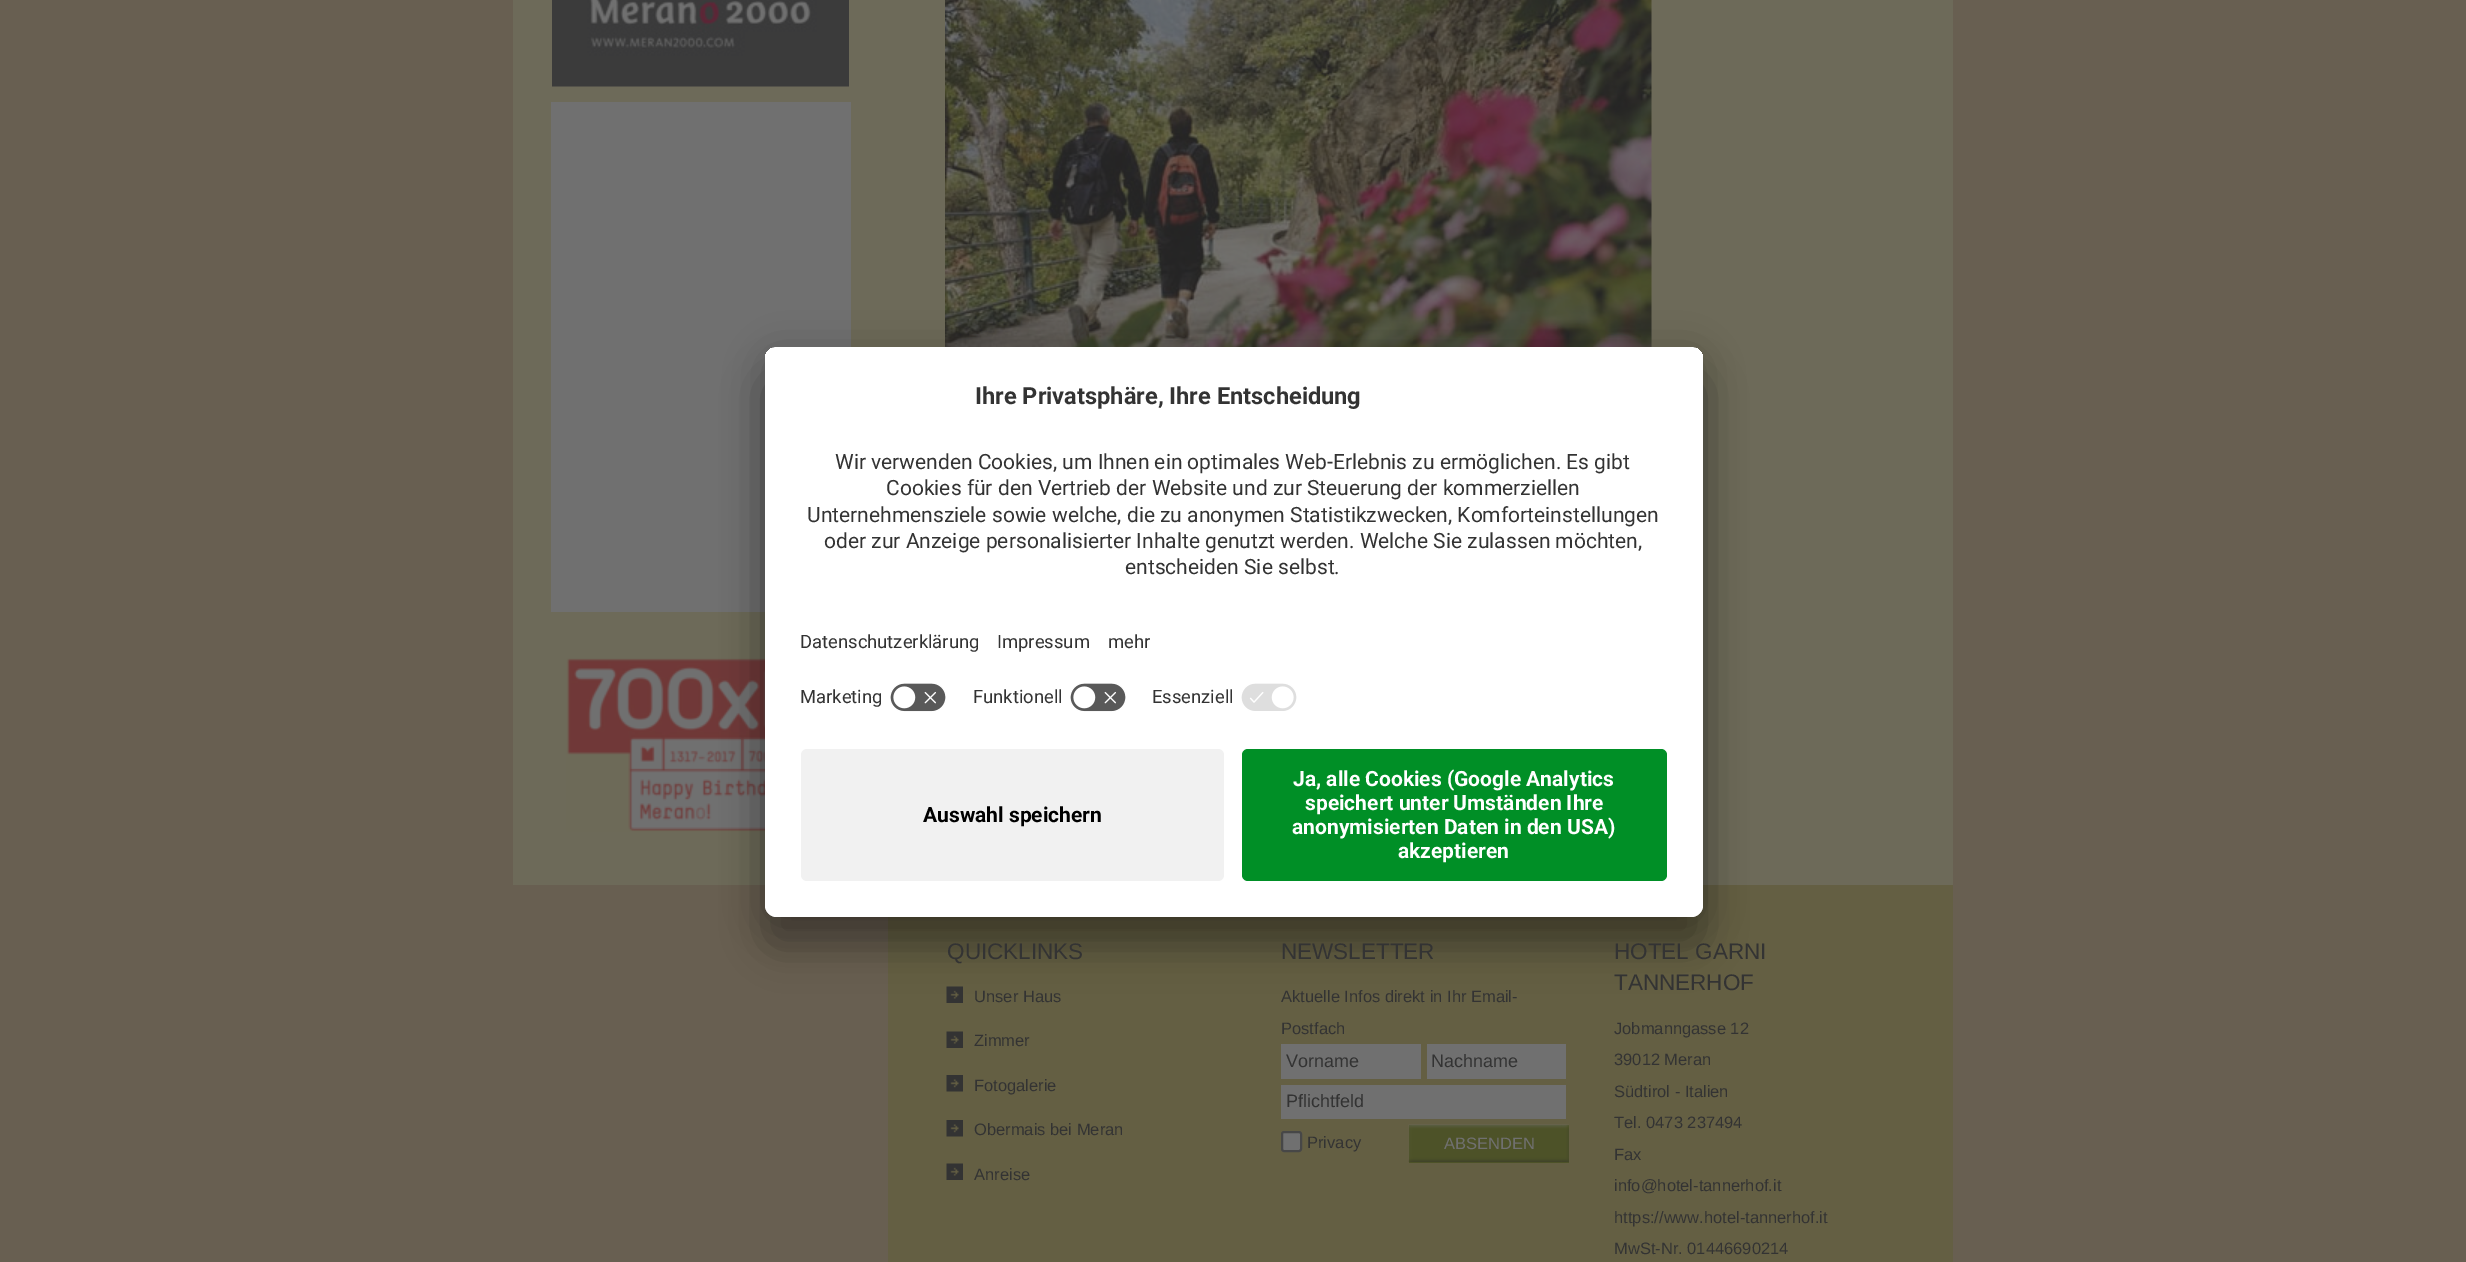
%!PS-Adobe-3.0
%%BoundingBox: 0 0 2466 1262
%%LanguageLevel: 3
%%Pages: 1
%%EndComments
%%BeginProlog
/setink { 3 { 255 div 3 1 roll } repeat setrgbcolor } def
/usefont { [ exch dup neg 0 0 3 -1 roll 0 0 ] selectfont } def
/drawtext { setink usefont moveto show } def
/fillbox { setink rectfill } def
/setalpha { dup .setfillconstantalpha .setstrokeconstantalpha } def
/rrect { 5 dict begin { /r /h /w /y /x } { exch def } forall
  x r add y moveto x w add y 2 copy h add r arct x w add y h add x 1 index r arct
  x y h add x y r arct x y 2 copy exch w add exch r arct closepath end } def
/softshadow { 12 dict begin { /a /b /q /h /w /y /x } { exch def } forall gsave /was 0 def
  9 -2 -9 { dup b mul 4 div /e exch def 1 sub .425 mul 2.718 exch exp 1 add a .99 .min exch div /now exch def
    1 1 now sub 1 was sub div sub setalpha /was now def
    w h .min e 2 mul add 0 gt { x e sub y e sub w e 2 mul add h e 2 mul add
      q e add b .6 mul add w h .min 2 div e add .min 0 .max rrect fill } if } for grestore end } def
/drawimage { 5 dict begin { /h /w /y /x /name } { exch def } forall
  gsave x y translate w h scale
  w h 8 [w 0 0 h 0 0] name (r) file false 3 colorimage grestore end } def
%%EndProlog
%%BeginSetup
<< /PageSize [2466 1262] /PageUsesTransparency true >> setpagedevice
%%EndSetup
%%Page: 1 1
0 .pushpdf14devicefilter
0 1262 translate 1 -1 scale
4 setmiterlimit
0 0 2466 1262 104 95 81 fillbox
513 0 1440 885 109 106 89 fillbox
551 102 300 510 112 112 112 fillbox
(assets/img4.rgb) 566 658 199 174 drawimage
(assets/img5.rgb) 945 0 707 347 drawimage
888 885 1065 377 100 95 67 fillbox
(assets/img6.rgb) 946 986 17 17 drawimage
0 0 0 setink
765 377 938 570 12 21 0.3 softshadow
765 354 938 570 12 19.5 0.22 softshadow
255 255 255 setink
765 347 938 570 12 rrect fill
gsave
765 347 938 570 12 rrect clip newpath
777 347 moveto 1691 347 lineto 1697.5 347 1703 352.5 1703 359 curveto 1703 737 lineto 765 737 lineto 765 359 lineto 765 352.5 770.5 347 777 347 curveto closepath clip newpath
765 348 938 389 255 255 255 fillbox
765 348 938 329 255 255 255 fillbox
grestore
(Ihre Privatsphäre, Ihre Entscheidung) 975 404 /Roboto-Bold 23.6 51 51 51 drawtext
(Wir verwenden Cookies, um Ihnen ein optimales Web-Erlebnis zu ermöglichen. Es gibt) 835 469 /Roboto-Regular 21 51 51 51 drawtext
(Cookies für den Vertrieb der Website und zur Steuerung der kommerziellen) 886 495 /Roboto-Regular 21 51 51 51 drawtext
(Unternehmensziele sowie welche, die zu anonymen Statistikzwecken, Komforteinstellungen) 807 522 /Roboto-Regular 21 51 51 51 drawtext
(oder zur Anzeige personalisierter Inhalte genutzt werden. Welche Sie zulassen möchten,) 824 548 /Roboto-Regular 21 51 51 51 drawtext
(entscheiden Sie selbst.) 1125 574 /Roboto-Regular 21 51 51 51 drawtext
(Datenschutzerklärung) 800 648 /Roboto-Regular 18.4 51 51 51 drawtext
(Impressum) 997 648 /Roboto-Regular 18.4 51 51 51 drawtext
(mehr) 1108 648 /Roboto-Regular 18.4 51 51 51 drawtext
(Marketing) 800 703 /Roboto-Regular 18.4 51 51 51 drawtext
(assets/img1.rgb) 890 683 56 29 drawimage
(Funktionell) 973 703 /Roboto-Regular 18.4 51 51 51 drawtext
(assets/img1.rgb) 1070 683 56 29 drawimage
(Essenziell) 1152 703 /Roboto-Regular 18.4 51 51 51 drawtext
(assets/img2.rgb) 1241 683 56 28 drawimage
255 255 255 setink
765 737 moveto 1703 737 lineto 1703 905 lineto 1703 911.5 1697.5 917 1691 917 curveto 777 917 lineto 770.5 917 765 911.5 765 905 curveto closepath fill
241 241 241 setink
801 749 423 132 6 rrect fill
(Auswahl speichern) 923 822 /Roboto-Bold 21 0 0 0 drawtext
0 143 38 setink
1242 749 425 132 6 rrect fill
(Ja, alle Cookies \(Google Analytics) 1293 786 /Roboto-Bold 21 255 255 255 drawtext
(speichert unter Umständen Ihre) 1305 810 /Roboto-Bold 21 255 255 255 drawtext
(anonymisierten Daten in den USA\)) 1292 834 /Roboto-Bold 21 255 255 255 drawtext
(akzeptieren) 1398 858 /Roboto-Bold 21 255 255 255 drawtext
(assets/img3.rgb) 552 0 297 87 drawimage
(QUICKLINKS) 947 959 /LiberationSans-Regular 22.5 51 51 51 drawtext
(Unser Haus) 974 1002 /LiberationSans-Regular 16.5 51 51 51 drawtext
(assets/img6.rgb) 946 1031 17 17 drawimage
(Zimmer) 974 1046 /LiberationSans-Regular 16.5 51 51 51 drawtext
(assets/img7.rgb) 946 1075 17 17 drawimage
(Fotogalerie) 974 1091 /LiberationSans-Regular 16.5 51 51 51 drawtext
(assets/img7.rgb) 946 1120 17 17 drawimage
(Obermais bei Meran) 974 1135 /LiberationSans-Regular 16.5 51 51 51 drawtext
(assets/img6.rgb) 946 1163 17 17 drawimage
(Anreise) 974 1180 /LiberationSans-Regular 16.5 51 51 51 drawtext
(NEWSLETTER) 1281 959 /LiberationSans-Regular 22.5 51 51 51 drawtext
(Aktuelle Infos direkt in Ihr Email-) 1281 1002 /LiberationSans-Regular 16.5 51 51 51 drawtext
(Postfach) 1281 1034 /LiberationSans-Regular 16.5 51 51 51 drawtext
1281 1044 140 35 112 112 112 fillbox
(Vorname) 1286 1067 /LiberationSans-Regular 18 51 51 51 drawtext
1427 1044 139 35 112 112 112 fillbox
(Nachname) 1431 1067 /LiberationSans-Regular 18 51 51 51 drawtext
1281 1085 285 34 112 112 112 fillbox
(Pflichtfeld) 1286 1107 /LiberationSans-Regular 18 51 51 51 drawtext
112 112 112 setink
1282 1132 19 19 2 rrect gsave fill grestore
71 71 71 setink
2 setlinewidth
stroke
(Privacy) 1307 1148 /LiberationSans-Regular 16.5 51 51 51 drawtext
1409 1125 160 38 77 82 40 fillbox
(assets/img8.rgb) 1408 1124 8 38 drawimage
(assets/img9.rgb) 1416 1124 146 38 drawimage
(ABSENDEN) 1444 1149 /LiberationSans-Regular 16.5 112 112 112 drawtext
(assets/img10.rgb) 1561 1124 8 38 drawimage
(HOTEL GARNI) 1614 959 /LiberationSans-Regular 22.5 51 51 51 drawtext
(TANNERHOF) 1614 990 /LiberationSans-Regular 22.5 51 51 51 drawtext
(Jobmanngasse 12) 1614 1034 /LiberationSans-Regular 16.5 51 51 51 drawtext
(39012 Meran) 1614 1065 /LiberationSans-Regular 16.5 51 51 51 drawtext
(Südtirol - Italien) 1614 1097 /LiberationSans-Regular 16.5 51 51 51 drawtext
(Tel. 0473 237494) 1614 1128 /LiberationSans-Regular 16.5 51 51 51 drawtext
(Fax) 1614 1160 /LiberationSans-Regular 16.5 51 51 51 drawtext
(info@hotel-tannerhof.it) 1614 1191 /LiberationSans-Regular 16.5 51 51 51 drawtext
(https://www.hotel-tannerhof.it) 1614 1223 /LiberationSans-Regular 16.5 51 51 51 drawtext
(MwSt-Nr. 01446690214) 1614 1254 /LiberationSans-Regular 16.5 51 51 51 drawtext
.poppdf14devicefilter showpage
%%EOF
